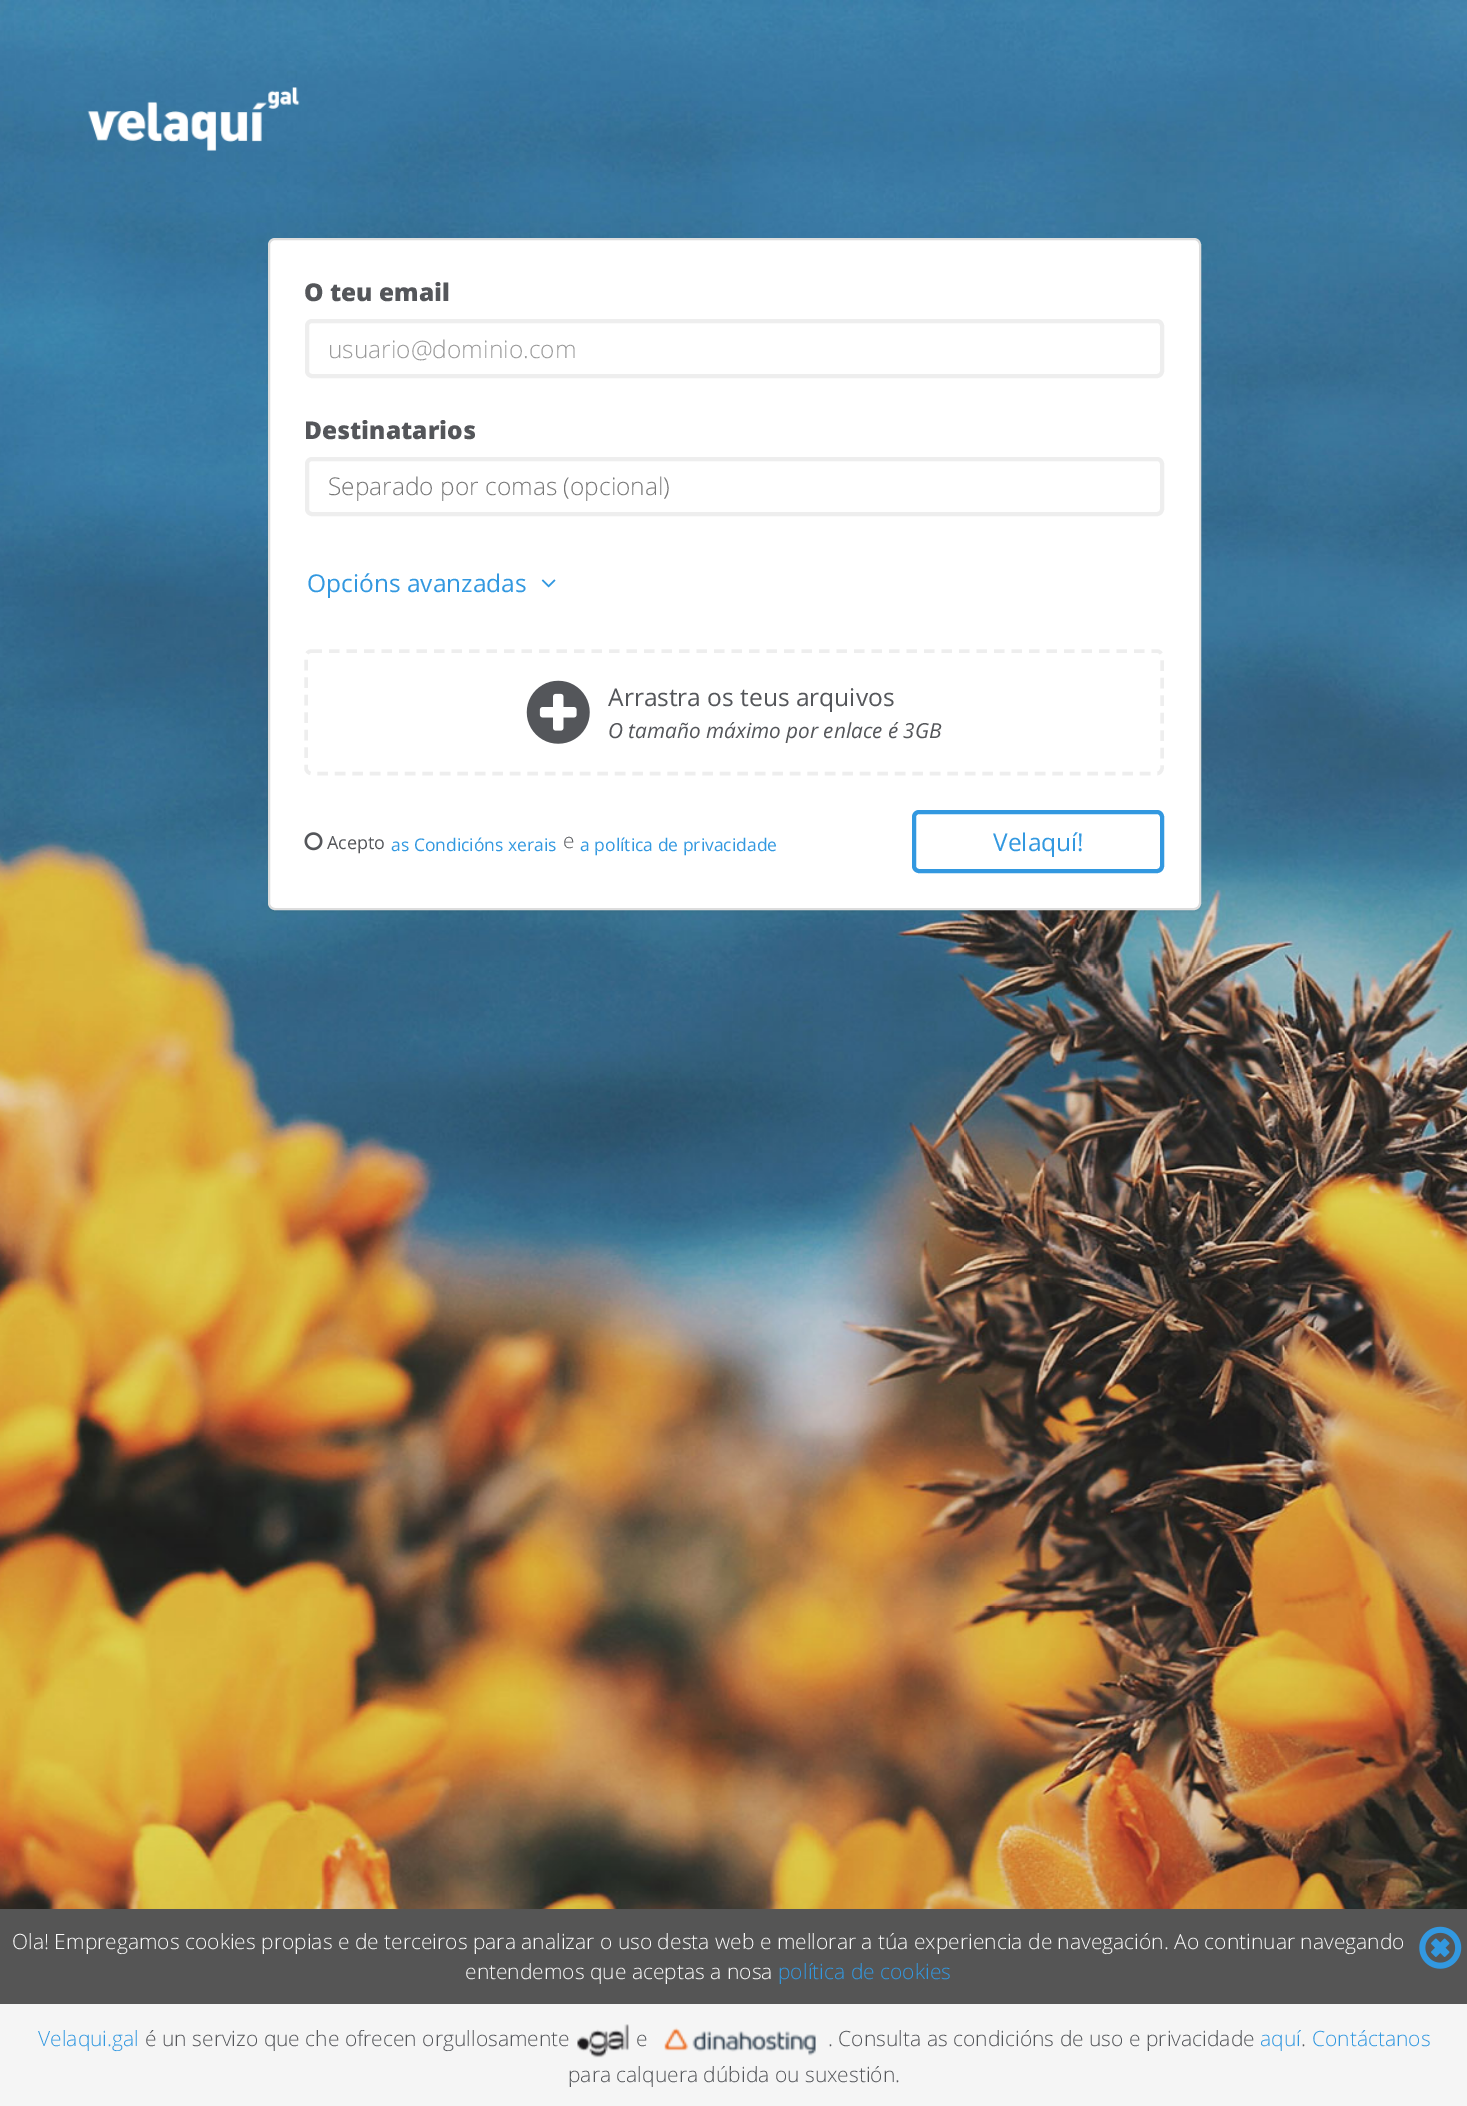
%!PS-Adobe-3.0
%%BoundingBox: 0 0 1467 2106
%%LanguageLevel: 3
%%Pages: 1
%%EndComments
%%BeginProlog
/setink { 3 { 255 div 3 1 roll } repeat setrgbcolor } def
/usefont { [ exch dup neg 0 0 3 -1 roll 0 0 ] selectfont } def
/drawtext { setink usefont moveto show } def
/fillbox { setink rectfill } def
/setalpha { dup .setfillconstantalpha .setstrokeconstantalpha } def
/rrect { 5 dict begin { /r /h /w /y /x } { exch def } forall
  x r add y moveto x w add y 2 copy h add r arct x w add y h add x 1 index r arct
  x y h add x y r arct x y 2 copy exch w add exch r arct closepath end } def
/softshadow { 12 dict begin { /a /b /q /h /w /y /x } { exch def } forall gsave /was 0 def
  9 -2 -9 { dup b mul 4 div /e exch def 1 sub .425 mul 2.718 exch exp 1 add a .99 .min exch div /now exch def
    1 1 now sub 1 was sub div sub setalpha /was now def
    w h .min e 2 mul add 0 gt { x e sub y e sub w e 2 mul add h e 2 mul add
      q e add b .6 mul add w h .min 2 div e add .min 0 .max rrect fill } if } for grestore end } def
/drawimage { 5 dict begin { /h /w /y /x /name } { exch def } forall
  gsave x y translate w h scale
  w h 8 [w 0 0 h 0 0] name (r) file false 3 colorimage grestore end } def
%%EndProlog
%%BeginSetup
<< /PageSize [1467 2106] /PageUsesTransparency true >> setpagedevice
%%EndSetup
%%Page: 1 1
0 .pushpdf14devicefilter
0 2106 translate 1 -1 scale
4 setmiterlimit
0 0 1467 2106 255 255 255 fillbox
(assets/img1.rgb) 0 0 1467 1909 drawimage
(assets/img2.rgb) 87 87 213 64 drawimage
0 0 0 setink
268 240 933 672 7 1 0.05 softshadow
255 255 255 setink
269 239 931 670 6 rrect gsave fill grestore
221 221 221 setink
2 setlinewidth
stroke
(O teu email) 304 301 /OpenSans-ExtraBold 24.5 84 86 90 drawtext
238 238 238 setink
4 setlinewidth
307 321 855 55 5 rrect stroke
(usuario@dominio.com) 328 358 /OpenSans-Light 24.5 153 153 153 drawtext
(Destinatarios) 304 439 /OpenSans-ExtraBold 24.5 84 86 90 drawtext
238 238 238 setink
307 459 855 55 5 rrect stroke
(Separado por comas \(opcional\)) 328 495 /OpenSans-Light 24.5 119 119 119 drawtext
(Opcións avanzadas) 307 592 /OpenSans-Regular 24.5 50 152 224 drawtext
(assets/img3.rgb) 541 579 15 9 drawimage
238 238 238 setink
3.5 setlinewidth
[10.5 7] 0 setdash
311.5 651 moveto 1157 651 lineto 1159.5 651 1162 653.5 1162 656 curveto 1162 768 lineto 1162 771 1159.5 773.5 1157 773.5 curveto 311.5 773.5 lineto 308.5 773.5 306 771 306 768 curveto 306 656 lineto 306 653.5 308.5 651 311.5 651 curveto closepath stroke
(assets/img4.rgb) 526 680 64 64 drawimage
(Arrastra os teus arquivos) 608 706 /OpenSans-Regular 24.5 84 86 90 drawtext
(O tamaño máximo por enlace é 3GB) 608 738 /OpenSans-Italic 20.8 84 86 90 drawtext
(assets/img5.rgb) 304 832 19 19 drawimage
(Acepto) 327 849 /OpenSans-Regular 18 84 86 90 drawtext
(as Condicións xerais) 391 851 /OpenSans-Regular 17.5 50 152 224 drawtext
(e) 563 848 /OpenSans-Light 20.8 84 86 90 drawtext
(a política de privacidade) 580 851 /OpenSans-Regular 17.5 50 152 224 drawtext
4 setlinewidth
[] 0 setdash
914 812 248 59 5 rrect stroke
(Velaquí!) 993 851 /OpenSans-Regular 24.5 50 152 224 drawtext
0 2004 1467 102 245 245 245 fillbox
0 1909 1467 95 85 85 85 fillbox
(Ola! Empregamos cookies propias e de terceiros para analizar o uso desta web e mellorar a túa experiencia de navegación. Ao continuar navegando) 12 1949 /OpenSans-Light 21 250 250 250 drawtext
(entendemos que aceptas a nosa) 465 1979 /OpenSans-Light 21 250 250 250 drawtext
(política de cookies) 778 1979 /OpenSans-Light 21 50 152 224 drawtext
(assets/img6.rgb) 1419 1926 43 43 drawimage
(Velaqui.gal) 38 2046 /OpenSans-Light 21 50 152 224 drawtext
(é un servizo que che ofrecen orgullosamente) 145 2046 /OpenSans-Light 21 84 86 90 drawtext
(assets/img7.rgb) 577 2024 52 34 drawimage
(e) 636 2046 /OpenSans-Light 21 84 86 90 drawtext
(assets/img8.rgb) 664 2027 152 29 drawimage
(. Consulta as condicións de uso e privacidade) 828 2046 /OpenSans-Light 21 84 86 90 drawtext
(aquí) 1260 2046 /OpenSans-Light 21 50 152 224 drawtext
(.) 1301 2046 /OpenSans-Light 21 84 86 90 drawtext
(Contáctanos) 1312 2046 /OpenSans-Light 21 50 152 224 drawtext
(para calquera dúbida ou suxestión.) 568 2082 /OpenSans-Light 21 84 86 90 drawtext
.poppdf14devicefilter showpage
%%EOF
